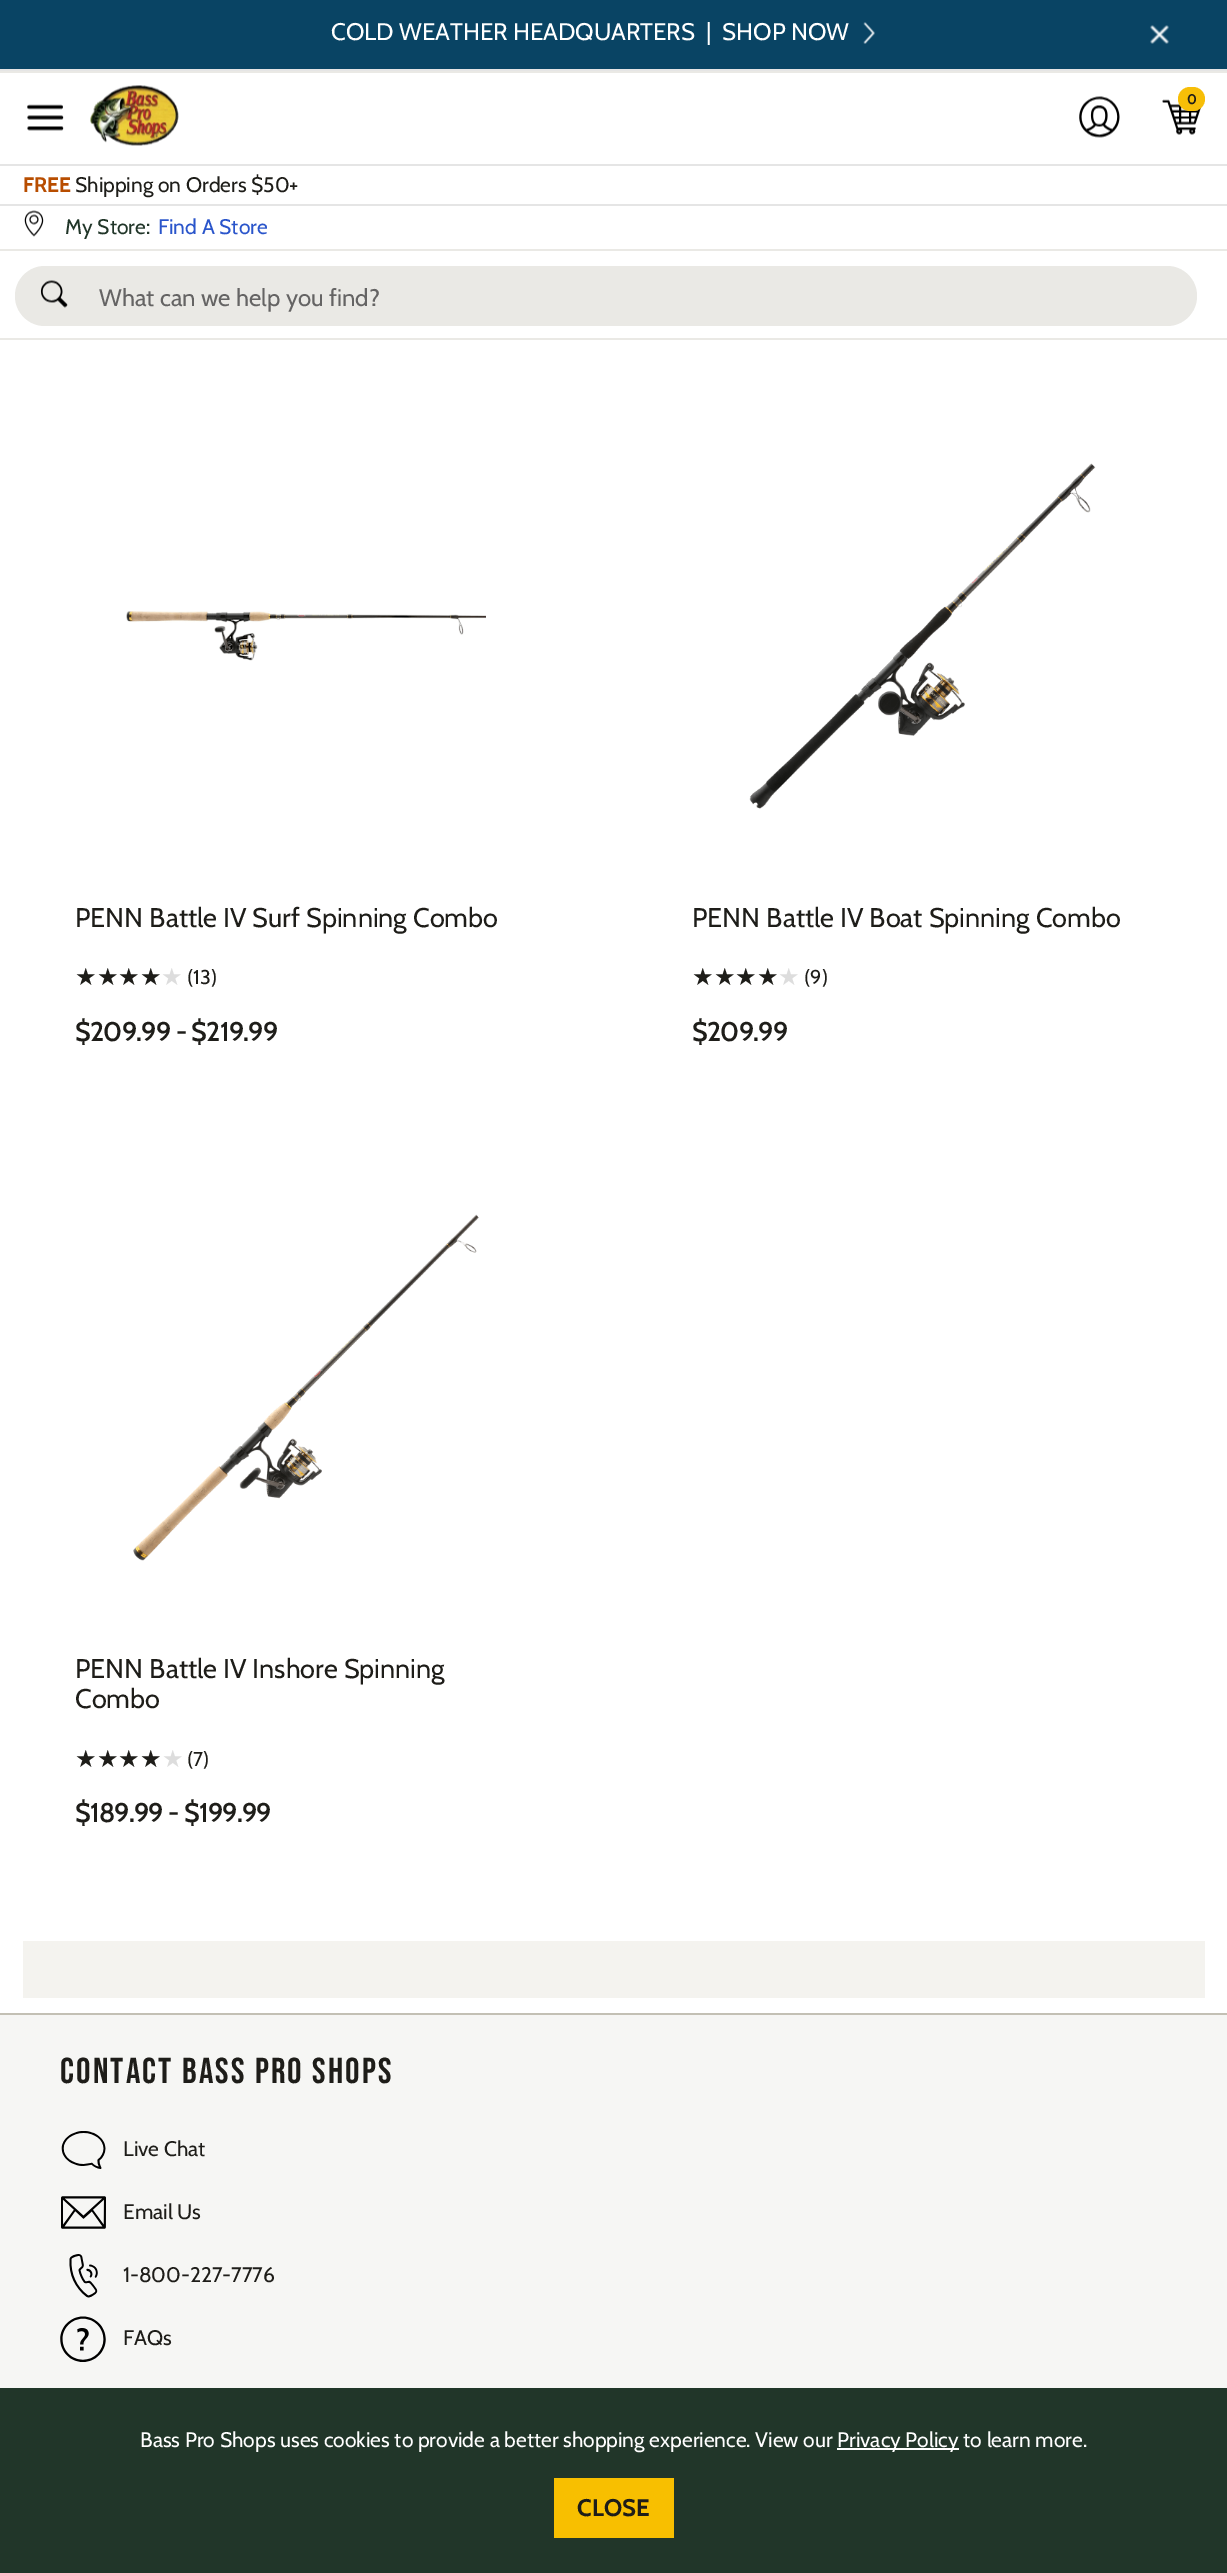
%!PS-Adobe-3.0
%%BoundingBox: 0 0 1227 2573
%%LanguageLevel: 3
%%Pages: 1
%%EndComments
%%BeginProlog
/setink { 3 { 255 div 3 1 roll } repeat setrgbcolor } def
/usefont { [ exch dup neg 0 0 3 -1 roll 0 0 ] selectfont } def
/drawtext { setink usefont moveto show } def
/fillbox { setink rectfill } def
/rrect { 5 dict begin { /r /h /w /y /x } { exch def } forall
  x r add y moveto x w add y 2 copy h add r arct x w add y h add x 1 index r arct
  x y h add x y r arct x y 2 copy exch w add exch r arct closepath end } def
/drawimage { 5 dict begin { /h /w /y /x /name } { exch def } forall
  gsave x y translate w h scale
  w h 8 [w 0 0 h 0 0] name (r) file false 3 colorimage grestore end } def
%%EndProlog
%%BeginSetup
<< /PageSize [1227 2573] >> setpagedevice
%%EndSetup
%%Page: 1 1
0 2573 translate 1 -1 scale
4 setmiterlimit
0 0 1227 2573 255 255 255 fillbox
0 0 1227 69 9 68 100 fillbox
0 69 1227 2 229 229 229 fillbox
(COLD WEATHER HEADQUARTERS) 331 40 /Cabin-Regular 24 255 255 255 drawtext
(|  SHOP NOW) 706 40 /Cabin-Regular 24 255 255 255 drawtext
(assets/img1.rgb) 863 22 12 22 drawimage
(assets/img2.rgb) 1150 25 19 19 drawimage
0 71 1227 2 234 233 229 fillbox
(assets/img3.rgb) 27 104 37 27 drawimage
(assets/img4.rgb) 90 85 89 61 drawimage
(assets/img5.rgb) 1079 96 41 42 drawimage
(assets/img6.rgb) 1162 99 40 36 drawimage
247 190 7 setink
1178 87 27 24 12 rrect fill
(0) 1187 104 /Cabin-Bold 14 30 29 25 drawtext
0 249 1227 2 234 233 229 fillbox
0 338 1227 2 234 233 229 fillbox
15 266 1182 60 30 rrect fill
(assets/img7.rgb) 40 280 28 28 drawimage
(What can we help you find?) 99 306 /Cabin-Regular 24 101 100 100 drawtext
0 164 1227 2 229 229 229 fillbox
(FREE) 23 192 /Cabin-Bold 21 184 77 0 drawtext
(Shipping on Orders $50+) 75 192 /Cabin-Regular 21 30 29 25 drawtext
0 204 1227 2 229 229 229 fillbox
(assets/img8.rgb) 24 210 20 27 drawimage
(My Store:) 65 234 /Cabin-Regular 21 33 54 41 drawtext
(Find A Store) 158 234 /Cabin-Regular 21 42 85 203 drawtext
0 2388 1227 185 33 54 41 fillbox
(Bass Pro Shops uses cookies to provide a better shopping experience. View our) 140 2447 /Cabin-Regular 21 255 255 255 drawtext
837 2448 122 2 255 255 255 fillbox
(Privacy Policy to learn more.) 837 2447 /Cabin-Regular 21 255 255 255 drawtext
554 2478 120 60 248 191 0 fillbox
(CLOSE) 577 2516 /Cabin-Bold 24 30 29 25 drawtext
(assets/img9.rgb) 126 611 360 50 drawimage
(PENN Battle IV Surf Spinning Combo) 75 927 /Cabin-Regular 27 30 29 25 drawtext
(★★★★) 75 985 /DejaVuSans-Regular 24 30 29 25 drawtext
(★) 161 985 /DejaVuSans-Regular 24 221 221 221 drawtext
(\(13\)) 187 984 /Cabin-Regular 20 30 29 25 drawtext
/Cabin-SemiBold 27 usefont
75 1041 moveto -0.75 0 ($209.99 - $219.99) ashow
(assets/img10.rgb) 749 463 347 346 drawimage
(PENN Battle IV Boat Spinning Combo) 692 927 /Cabin-Regular 27 30 29 25 drawtext
(★★★★) 692 985 /DejaVuSans-Regular 24 30 29 25 drawtext
(★) 778 985 /DejaVuSans-Regular 24 221 221 221 drawtext
(\(9\)) 804 984 /Cabin-Regular 20 30 29 25 drawtext
/Cabin-SemiBold 27 usefont
692 1041 moveto -0.75 0 ($209.99) ashow
(assets/img11.rgb) 133 1214 346 347 drawimage
(PENN Battle IV Inshore Spinning) 75 1678 /Cabin-Regular 27 30 29 25 drawtext
(Combo) 75 1708 /Cabin-Regular 27 30 29 25 drawtext
(★★★) 75 1767 /DejaVuSans-Regular 24 30 29 25 drawtext
(★★) 140 1767 /DejaVuSans-Regular 24 221 221 221 drawtext
(★) 140 1767 /DejaVuSans-Regular 24 30 29 25 drawtext
(\(7\)) 187 1766 /Cabin-Regular 20 30 29 25 drawtext
/Cabin-SemiBold 27 usefont
75 1822 moveto -0.75 0 ($189.99 - $199.99) ashow
23 1941 1182 57 244 243 239 fillbox
0 2015 1227 373 246 246 244 fillbox
0 2013 1227 2 195 192 180 fillbox
/BebasNeue-Regular 36 usefont
30 29 25 setink
60 2083 moveto 2.25 0 (CONTACT BASS PRO SHOPS) ashow
(assets/img12.rgb) 61 2131 45 38 drawimage
(Live Chat) 123 2156 /Cabin-Regular 21 30 29 25 drawtext
(assets/img13.rgb) 61 2196 45 33 drawimage
(Email Us) 123 2219 /Cabin-Regular 21 30 29 25 drawtext
(assets/img14.rgb) 69 2254 29 44 drawimage
(1-800-227-7776) 123 2282 /Cabin-Regular 21 30 29 25 drawtext
(assets/img15.rgb) 60 2316 46 46 drawimage
(FAQs) 123 2345 /Cabin-Regular 21 30 29 25 drawtext
showpage
%%EOF
